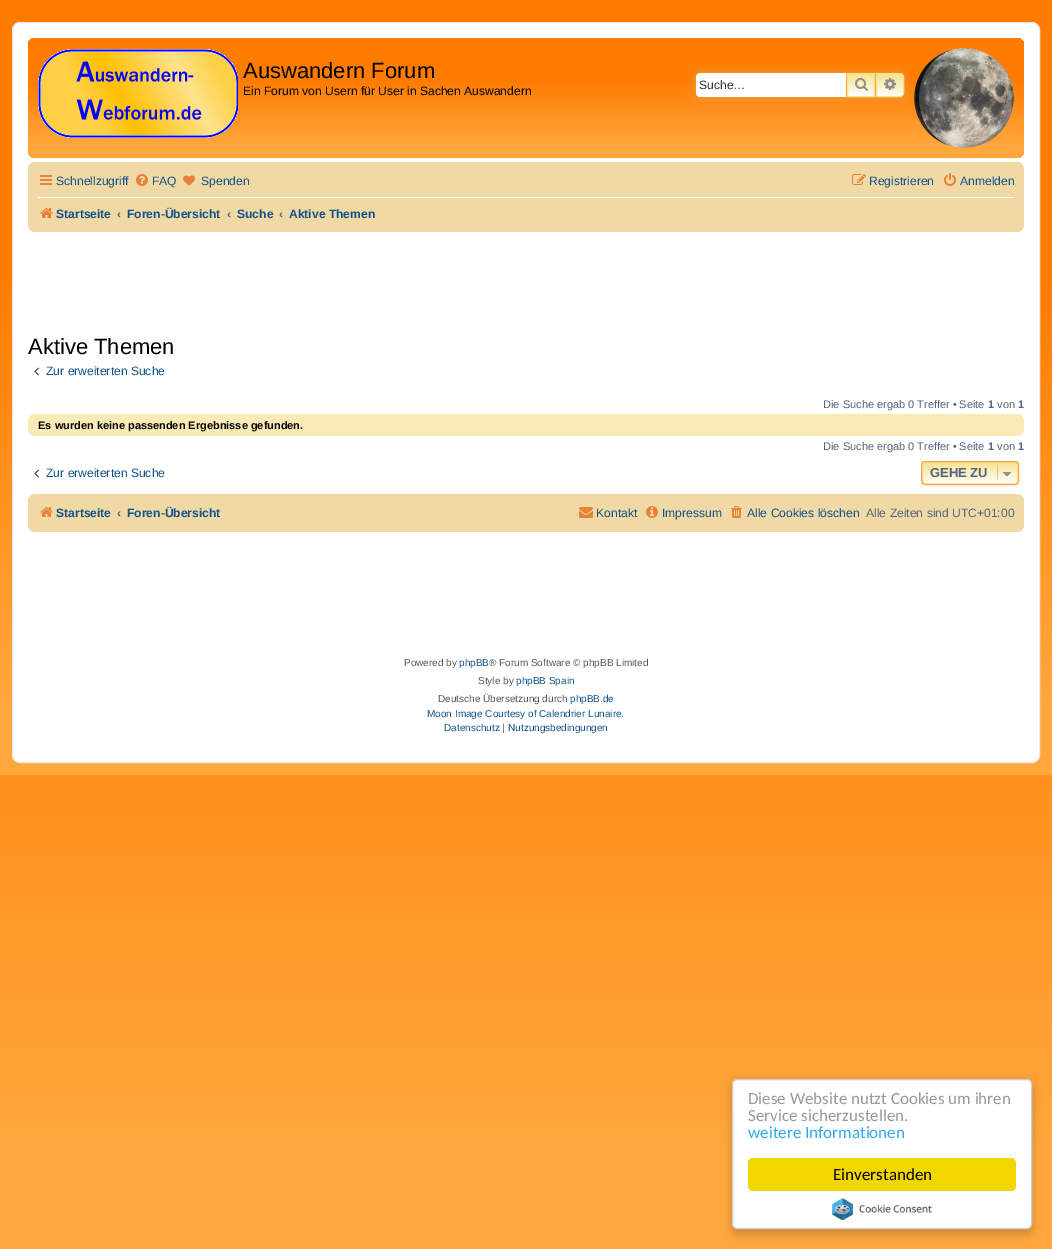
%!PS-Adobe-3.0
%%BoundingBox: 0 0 1052 1249
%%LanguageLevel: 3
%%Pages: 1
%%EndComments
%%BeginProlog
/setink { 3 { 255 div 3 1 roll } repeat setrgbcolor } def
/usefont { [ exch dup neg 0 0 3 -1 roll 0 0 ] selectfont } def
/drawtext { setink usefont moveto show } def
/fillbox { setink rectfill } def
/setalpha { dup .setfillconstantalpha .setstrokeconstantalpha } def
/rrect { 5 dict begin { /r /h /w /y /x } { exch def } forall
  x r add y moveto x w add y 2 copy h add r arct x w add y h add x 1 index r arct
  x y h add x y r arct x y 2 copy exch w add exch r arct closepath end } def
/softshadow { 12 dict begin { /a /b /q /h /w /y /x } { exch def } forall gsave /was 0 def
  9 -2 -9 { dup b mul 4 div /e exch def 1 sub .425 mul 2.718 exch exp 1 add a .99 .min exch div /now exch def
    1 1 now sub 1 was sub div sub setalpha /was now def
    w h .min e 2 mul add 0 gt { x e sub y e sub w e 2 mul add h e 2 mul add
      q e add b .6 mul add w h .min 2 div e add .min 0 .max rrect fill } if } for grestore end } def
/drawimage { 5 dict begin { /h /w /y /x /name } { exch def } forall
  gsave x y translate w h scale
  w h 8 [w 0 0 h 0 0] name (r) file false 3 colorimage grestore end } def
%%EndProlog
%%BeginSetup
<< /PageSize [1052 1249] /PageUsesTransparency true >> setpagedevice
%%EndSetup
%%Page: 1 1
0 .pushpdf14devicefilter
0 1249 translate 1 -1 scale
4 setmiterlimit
0 0 1052 1249 255 255 255 fillbox
gsave 0 775 moveto 1052 775 lineto 1052 1249 lineto 0 1249 lineto closepath clip newpath
<< /ShadingType 2 /ColorSpace /DeviceRGB /Coords [526 0 526 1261] /Extend [true true] /Function << /FunctionType 3 /Domain [0 1] /Functions [<< /FunctionType 2 /Domain [0 1] /C0 [1 0.486 0] /C1 [1 0.486 0] /N 1 >> << /FunctionType 2 /Domain [0 1] /C0 [1 0.486 0] /C1 [1 0.655 0.239] /N 1 >> << /FunctionType 2 /Domain [0 1] /C0 [1 0.655 0.239] /C1 [1 0.655 0.239] /N 1 >>] /Bounds [0.35 0.91] /Encode [0 1 0 1 0 1] >> >> shfill grestore
gsave 0 0 moveto 1052 0 lineto 1052 775 lineto 0 775 lineto closepath clip newpath
<< /ShadingType 2 /ColorSpace /DeviceRGB /Coords [526 0 526 775] /Extend [true true] /Function << /FunctionType 3 /Domain [0 1] /Functions [<< /FunctionType 2 /Domain [0 1] /C0 [1 0.486 0] /C1 [1 0.486 0] /N 1 >> << /FunctionType 2 /Domain [0 1] /C0 [1 0.486 0] /C1 [1 0.655 0.239] /N 1 >> << /FunctionType 2 /Domain [0 1] /C0 [1 0.655 0.239] /C1 [1 0.655 0.239] /N 1 >>] /Bounds [0.35 0.91] /Encode [0 1 0 1 0 1] >> >> shfill grestore
12.5 22.5 1027 740 7.5 rrect gsave fill grestore
230 233 237 setink
stroke
gsave 28 38 996 120 7 rrect clip newpath
<< /ShadingType 2 /ColorSpace /DeviceRGB /Coords [526 38 526 158] /Extend [true true] /Function << /FunctionType 3 /Domain [0 1] /Functions [<< /FunctionType 2 /Domain [0 1] /C0 [1 0.486 0] /C1 [1 0.486 0] /N 1 >> << /FunctionType 2 /Domain [0 1] /C0 [1 0.486 0] /C1 [1 0.655 0.239] /N 1 >> << /FunctionType 2 /Domain [0 1] /C0 [1 0.655 0.239] /C1 [1 0.655 0.239] /N 1 >>] /Bounds [0.35 0.91] /Encode [0 1 0 1 0 1] >> >> shfill grestore
(assets/img1.rgb) 38 49 200 89 drawimage
(Auswandern Forum) 243 78 /LiberationSans-Regular 22 0 0 0 drawtext
(Ein Forum von Usern für User in Sachen Auswandern) 243 95 /LiberationSans-Regular 12.1 0 0 0 drawtext
(assets/img4.rgb) 914 48 100 100 drawimage
233 162 77 setink
696 73 208 24 4 5 1 softshadow
255 255 255 setink
700 73 moveto 846 73 lineto 846 97 lineto 700 97 lineto 698 97 696 95 696 93 curveto 696 77 lineto 696 75 698 73 700 73 curveto closepath fill
(Suche…) 699 89 /LiberationSans-Regular 12.1 51 51 51 drawtext
gsave 848 74 moveto 874 74 lineto 874 96 lineto 848 96 lineto closepath clip newpath
<< /ShadingType 2 /ColorSpace /DeviceRGB /Coords [861 73 861 97] /Extend [true true] /Function << /FunctionType 2 /Domain [0 1] /C0 [0.976 0.886 0.537] /C1 [1 1 1] /N 1 >> >> shfill grestore
249 226 137 setink
847.5 73.5 27 23 rectstroke
875 73 1 24 255 166 77 fillbox
846 73 1 24 255 166 77 fillbox
(assets/img2.rgb) 855 78 13 13 drawimage
gsave 876.5 73.5 moveto 900 73.5 lineto 902 73.5 903.5 75 903.5 77 curveto 903.5 93 lineto 903.5 95 902 96.5 900 96.5 curveto 876.5 96.5 lineto closepath clip newpath
<< /ShadingType 2 /ColorSpace /DeviceRGB /Coords [890 73 890 97] /Extend [true true] /Function << /FunctionType 2 /Domain [0 1] /C0 [0.976 0.886 0.537] /C1 [1 1 1] /N 1 >> >> shfill grestore
249 226 137 setink
876.5 73.5 moveto 900 73.5 lineto 902 73.5 903.5 75 903.5 77 curveto 903.5 93 lineto 903.5 95 902 96.5 900 96.5 curveto 876.5 96.5 lineto closepath stroke
(assets/img3.rgb) 884 78 12 12 drawimage
240 217 165 setink
28 162 996 70 7 rrect fill
(assets/img5.rgb) 40 175 12 10 drawimage
(Schnellzugriff) 56 185 /LiberationSans-Regular 12.1 16 82 137 drawtext
(assets/img6.rgb) 136 174 12 12 drawimage
(FAQ) 152 185 /LiberationSans-Regular 12.1 16 82 137 drawtext
(assets/img7.rgb) 183 175 13 11 drawimage
(Spenden) 201 185 /LiberationSans-Regular 12.1 16 82 137 drawtext
(assets/img8.rgb) 852 174 14 11 drawimage
(Registrieren) 869 185 /LiberationSans-Regular 12.1 16 82 137 drawtext
(assets/img9.rgb) 944 173 12 13 drawimage
(Anmelden) 960 185 /LiberationSans-Regular 12.1 16 82 137 drawtext
38 197 976 1 255 255 255 fillbox
(assets/img10.rgb) 40 208 13 10 drawimage
(Startseite) 56 218 /LiberationSans-Bold 12.1 16 82 137 drawtext
(‹) 117 218 /LiberationSans-Bold 12.1 83 100 130 drawtext
(Foren-Übersicht) 127 218 /LiberationSans-Bold 12.1 16 82 137 drawtext
(‹) 227 218 /LiberationSans-Bold 12.1 83 100 130 drawtext
(Suche) 237 218 /LiberationSans-Bold 12.1 16 82 137 drawtext
(‹) 279 218 /LiberationSans-Bold 12.1 83 100 130 drawtext
(Aktive Themen) 289 218 /LiberationSans-Bold 12.1 16 82 137 drawtext
(Aktive Themen) 28 354 /LiberationSans-Regular 22 0 0 0 drawtext
(assets/img11.rgb) 34 367 5 9 drawimage
(Zur erweiterten Suche) 46 375 /LiberationSans-Regular 12.1 16 82 137 drawtext
(Die Suche ergab 0 Treffer • Seite) 823 408 /LiberationSans-Regular 11 83 100 130 drawtext
(1) 988 408 /LiberationSans-Bold 11 83 100 130 drawtext
(von) 997 408 /LiberationSans-Regular 11 83 100 130 drawtext
(1) 1018 408 /LiberationSans-Bold 11 83 100 130 drawtext
249 235 182 setink
28 414 996 22 7 rrect fill
(Es wurden keine passenden Ergebnisse gefunden.) 38 429 /LiberationSans-Bold 11 0 0 0 drawtext
(Die Suche ergab 0 Treffer • Seite) 823 450 /LiberationSans-Regular 11 83 100 130 drawtext
(1) 988 450 /LiberationSans-Bold 11 83 100 130 drawtext
(von) 997 450 /LiberationSans-Regular 11 83 100 130 drawtext
(1) 1018 450 /LiberationSans-Bold 11 83 100 130 drawtext
(assets/img11.rgb) 34 469 5 9 drawimage
(Zur erweiterten Suche) 46 477 /LiberationSans-Regular 12.1 16 82 137 drawtext
gsave
921 461 98 24 4 rrect clip newpath
gsave 921 462 moveto 1019 462 lineto 1019 484 lineto 921 484 lineto closepath clip newpath
<< /ShadingType 2 /ColorSpace /DeviceRGB /Coords [970 462 970 484] /Extend [true true] /Function << /FunctionType 2 /Domain [0 1] /C0 [0.976 0.886 0.537] /C1 [1 1 1] /N 1 >> >> shfill grestore
grestore
249 226 137 setink
922.5 462.5 95 21 2.5 rrect stroke
255 166 77 setink
921.5 461.5 97 23 3.5 rrect stroke
(GEHE ZU) 930 477 /LiberationSans-Bold 13 83 100 130 drawtext
997 465 1 15 199 195 191 fillbox
(assets/img12.rgb) 1003 472 8 5 drawimage
240 217 165 setink
28 494 996 38 7 rrect fill
(assets/img10.rgb) 40 507 13 10 drawimage
(Startseite) 56 517 /LiberationSans-Bold 12.1 16 82 137 drawtext
(‹) 117 517 /LiberationSans-Bold 12.1 83 100 130 drawtext
(Foren-Übersicht) 127 517 /LiberationSans-Bold 12.1 16 82 137 drawtext
(assets/img13.rgb) 579 507 14 11 drawimage
(Kontakt) 596 517 /LiberationSans-Regular 12.1 16 82 137 drawtext
(assets/img14.rgb) 646 506 12 12 drawimage
(Impressum) 662 517 /LiberationSans-Regular 12.1 16 82 137 drawtext
(assets/img15.rgb) 731 506 11 12 drawimage
(Alle Cookies löschen) 747 517 /LiberationSans-Regular 12.1 16 82 137 drawtext
(Alle Zeiten sind UTC+01:00) 866 517 /LiberationSans-Regular 12.1 83 100 130 drawtext
(Powered by) 404 666 /LiberationSans-Regular 10 85 85 85 drawtext
(phpBB) 459 666 /LiberationSans-Regular 10 16 82 137 drawtext
(® Forum Software © phpBB Limited) 489 666 /LiberationSans-Regular 10 85 85 85 drawtext
(Style by) 478 684 /LiberationSans-Regular 10 85 85 85 drawtext
(phpBB Spain) 516 684 /LiberationSans-Regular 10 16 82 137 drawtext
(Deutsche Übersetzung durch) 438 702 /LiberationSans-Regular 10 85 85 85 drawtext
(phpBB.de) 570 702 /LiberationSans-Regular 10 16 82 137 drawtext
(Moon Image Courtesy of Calendrier Lunaire.) 427 717 /LiberationSans-Regular 10 16 82 137 drawtext
(Datenschutz) 444 731 /LiberationSans-Regular 10 16 82 137 drawtext
(|) 502 731 /LiberationSans-Regular 10 85 85 85 drawtext
(Nutzungsbedingungen) 508 731 /LiberationSans-Regular 10 16 82 137 drawtext
0 0 0 setink
732 1084 300 150 5 5 0.2 softshadow
255 255 255 setink
732.5 1079.5 299 149 4.5 rrect gsave fill grestore
204 204 204 setink
stroke
(Diese Website nutzt Cookies um ihren) 748 1104 /Carlito-Regular 17 153 153 153 drawtext
(Service sicherzustellen.) 748 1121 /Carlito-Regular 17 153 153 153 drawtext
(weitere Informationen) 748 1138 /Carlito-Regular 17 49 168 240 drawtext
241 214 0 setink
748 1158 268 33 5 rrect fill
(Einverstanden) 833 1180 /Carlito-Regular 17 0 0 0 drawtext
(assets/img16.rgb) 832 1198 100 22 drawimage
.poppdf14devicefilter showpage
%%EOF
